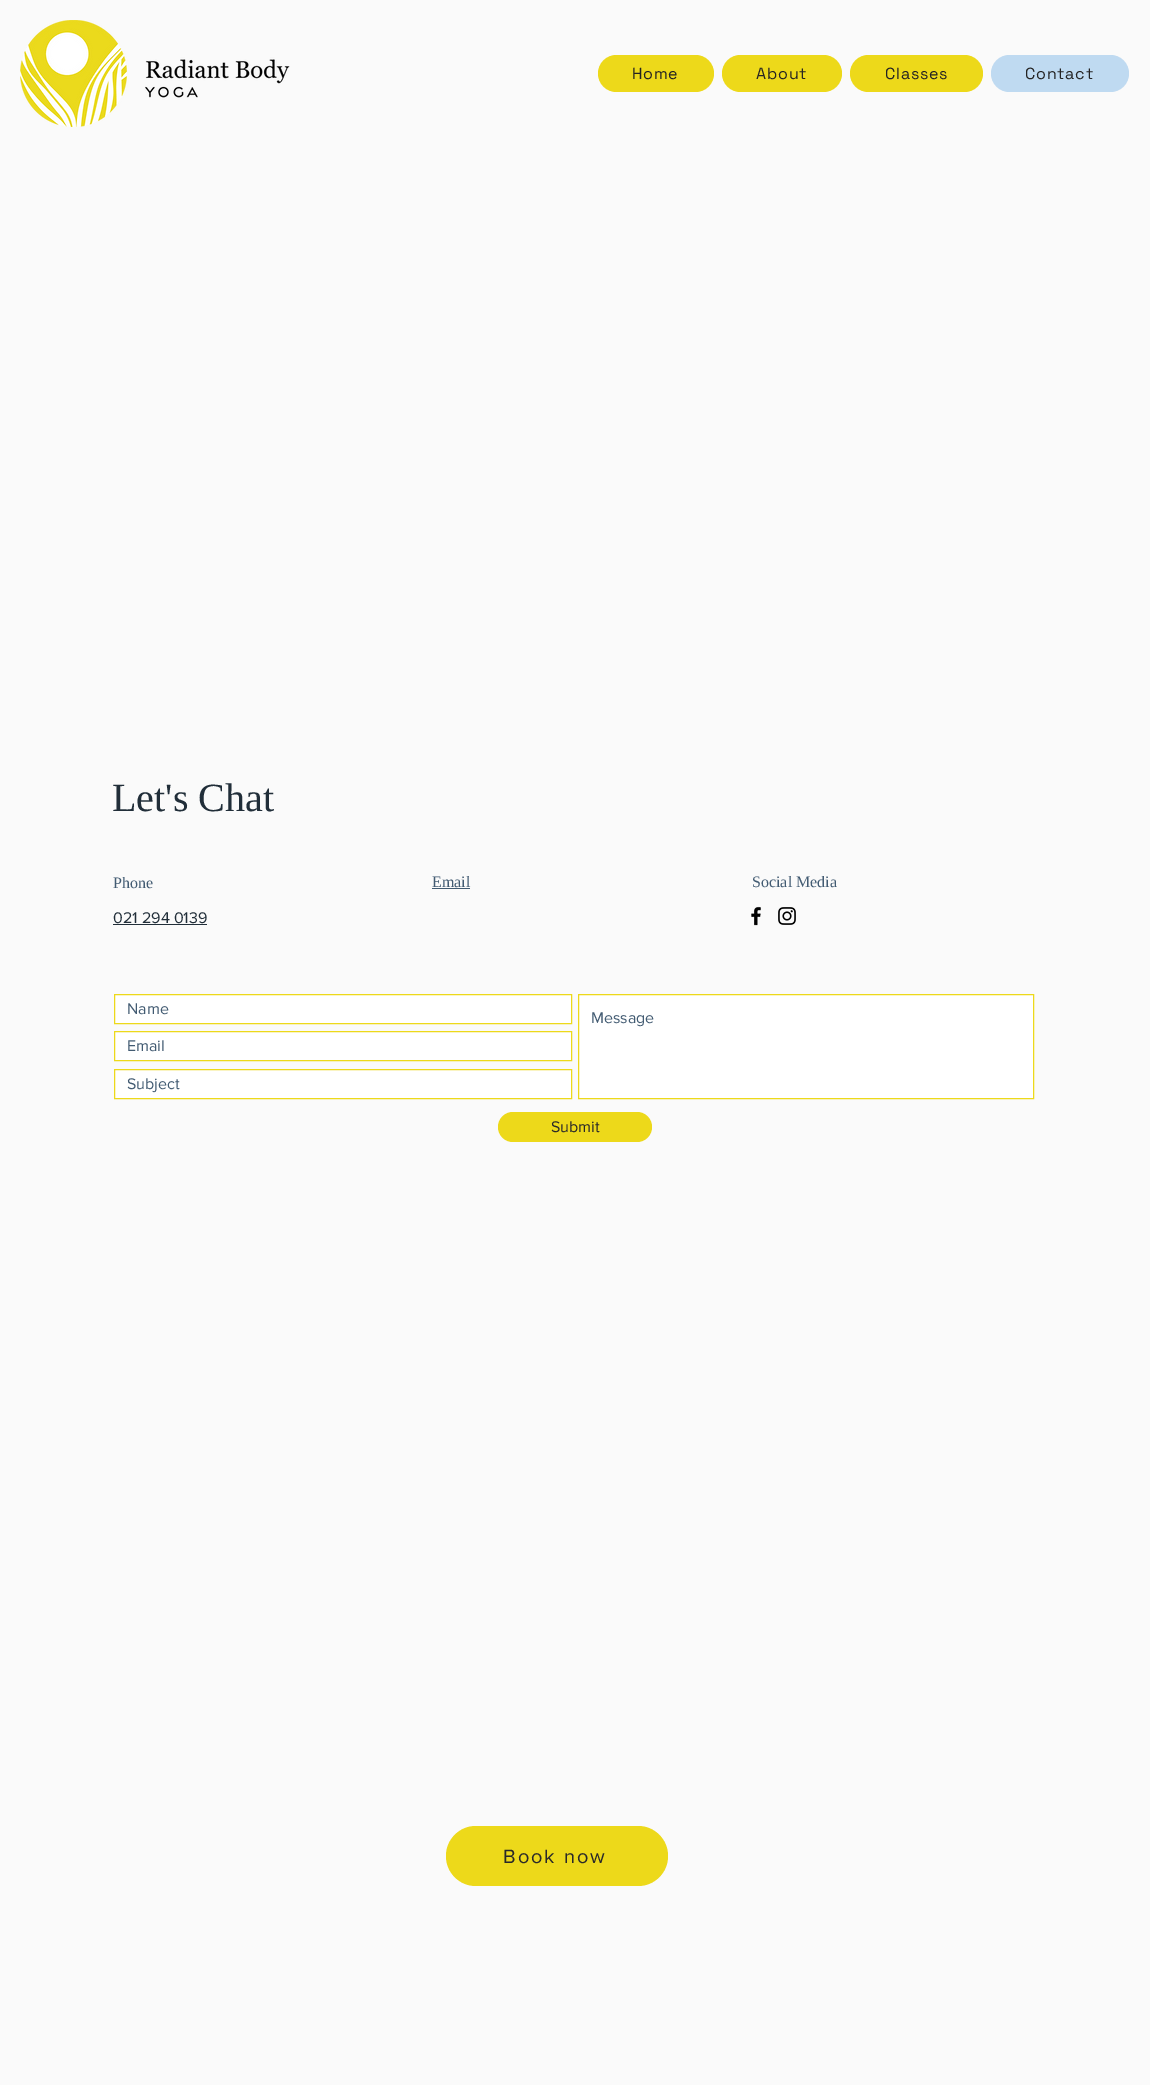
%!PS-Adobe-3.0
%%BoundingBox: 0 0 1150 2085
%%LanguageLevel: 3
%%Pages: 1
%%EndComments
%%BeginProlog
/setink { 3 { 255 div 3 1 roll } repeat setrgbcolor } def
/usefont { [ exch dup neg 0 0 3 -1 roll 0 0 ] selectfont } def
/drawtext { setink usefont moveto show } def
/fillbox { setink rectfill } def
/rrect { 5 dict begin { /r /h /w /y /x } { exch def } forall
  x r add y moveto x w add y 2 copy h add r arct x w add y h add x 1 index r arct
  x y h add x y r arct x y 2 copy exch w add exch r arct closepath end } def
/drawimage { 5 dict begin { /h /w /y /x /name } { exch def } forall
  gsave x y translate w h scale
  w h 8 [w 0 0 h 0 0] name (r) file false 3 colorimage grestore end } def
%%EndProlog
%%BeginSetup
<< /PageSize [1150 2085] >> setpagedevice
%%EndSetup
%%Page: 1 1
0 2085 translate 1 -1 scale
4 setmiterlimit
0 0 1150 2085 250 250 250 fillbox
(assets/img1.rgb) 20 20 270 107 drawimage
237 217 26 setink
598 55 116 37 18.5 rrect fill
/SpaceGrotesk-Regular 16 usefont
36 35 35 setink
632 79 moveto 0.75 0 (Home) ashow
237 217 26 setink
722 55 120 37 18.5 rrect fill
36 35 35 setink
756 79 moveto 0.75 0 (About) ashow
237 217 26 setink
850 55 133 37 18.5 rrect fill
36 35 35 setink
885 79 moveto 0.75 0 (Classes) ashow
191 218 241 setink
991 55 138 37 18.5 rrect fill
36 35 35 setink
1025 79 moveto 0.75 0 (Contact) ashow
(Let's Chat) 112 811 /LiberationSerif-Regular 40 33 46 57 drawtext
(Phone) 113 888 /LiberationSerif-Regular 16 66 91 114 drawtext
(Email) 432 887 /LiberationSerif-Regular 16 66 91 114 drawtext
432 888 38 1 66 91 114 fillbox
(Social Media) 752 887 /LiberationSerif-Regular 16 66 91 114 drawtext
(021 294 0139) 113 923 /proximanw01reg-Regular 16 33 46 57 drawtext
113 924 94 1 33 46 57 fillbox
(assets/img2.rgb) 751 906 10 20 drawimage
(assets/img3.rgb) 778 907 18 18 drawimage
255 255 255 setink
114.5 994.5 moveto 571.5 994.5 lineto 571.5 1023.5 lineto 114.5 1023.5 lineto closepath gsave fill grestore
237 217 26 setink
stroke
(Name) 127 1014 /proximanw01reg-Regular 16 66 91 114 drawtext
255 255 255 setink
578.5 994.5 moveto 1033.5 994.5 lineto 1033.5 1098.5 lineto 578.5 1098.5 lineto closepath gsave fill grestore
237 217 26 setink
stroke
(Message) 591 1023 /proximanw01reg-Regular 16 66 91 114 drawtext
255 255 255 setink
114.5 1031.5 moveto 571.5 1031.5 lineto 571.5 1060.5 lineto 114.5 1060.5 lineto closepath gsave fill grestore
237 217 26 setink
stroke
(Email) 127 1051 /proximanw01reg-Regular 16 66 91 114 drawtext
255 255 255 setink
114.5 1069.5 moveto 571.5 1069.5 lineto 571.5 1098.5 lineto 114.5 1098.5 lineto closepath gsave fill grestore
237 217 26 setink
stroke
(Subject) 127 1089 /proximanw01reg-Regular 16 66 91 114 drawtext
237 217 26 setink
498 1112 154 30 15 rrect fill
(Submit) 551 1132 /proximanw01reg-Regular 16 41 41 41 drawtext
237 217 26 setink
446 1826 222 60 30 rrect fill
/proximanw01reg-Regular 20 usefont
41 41 41 setink
503 1863 moveto 2 0 (Book now) ashow
showpage
%%EOF
